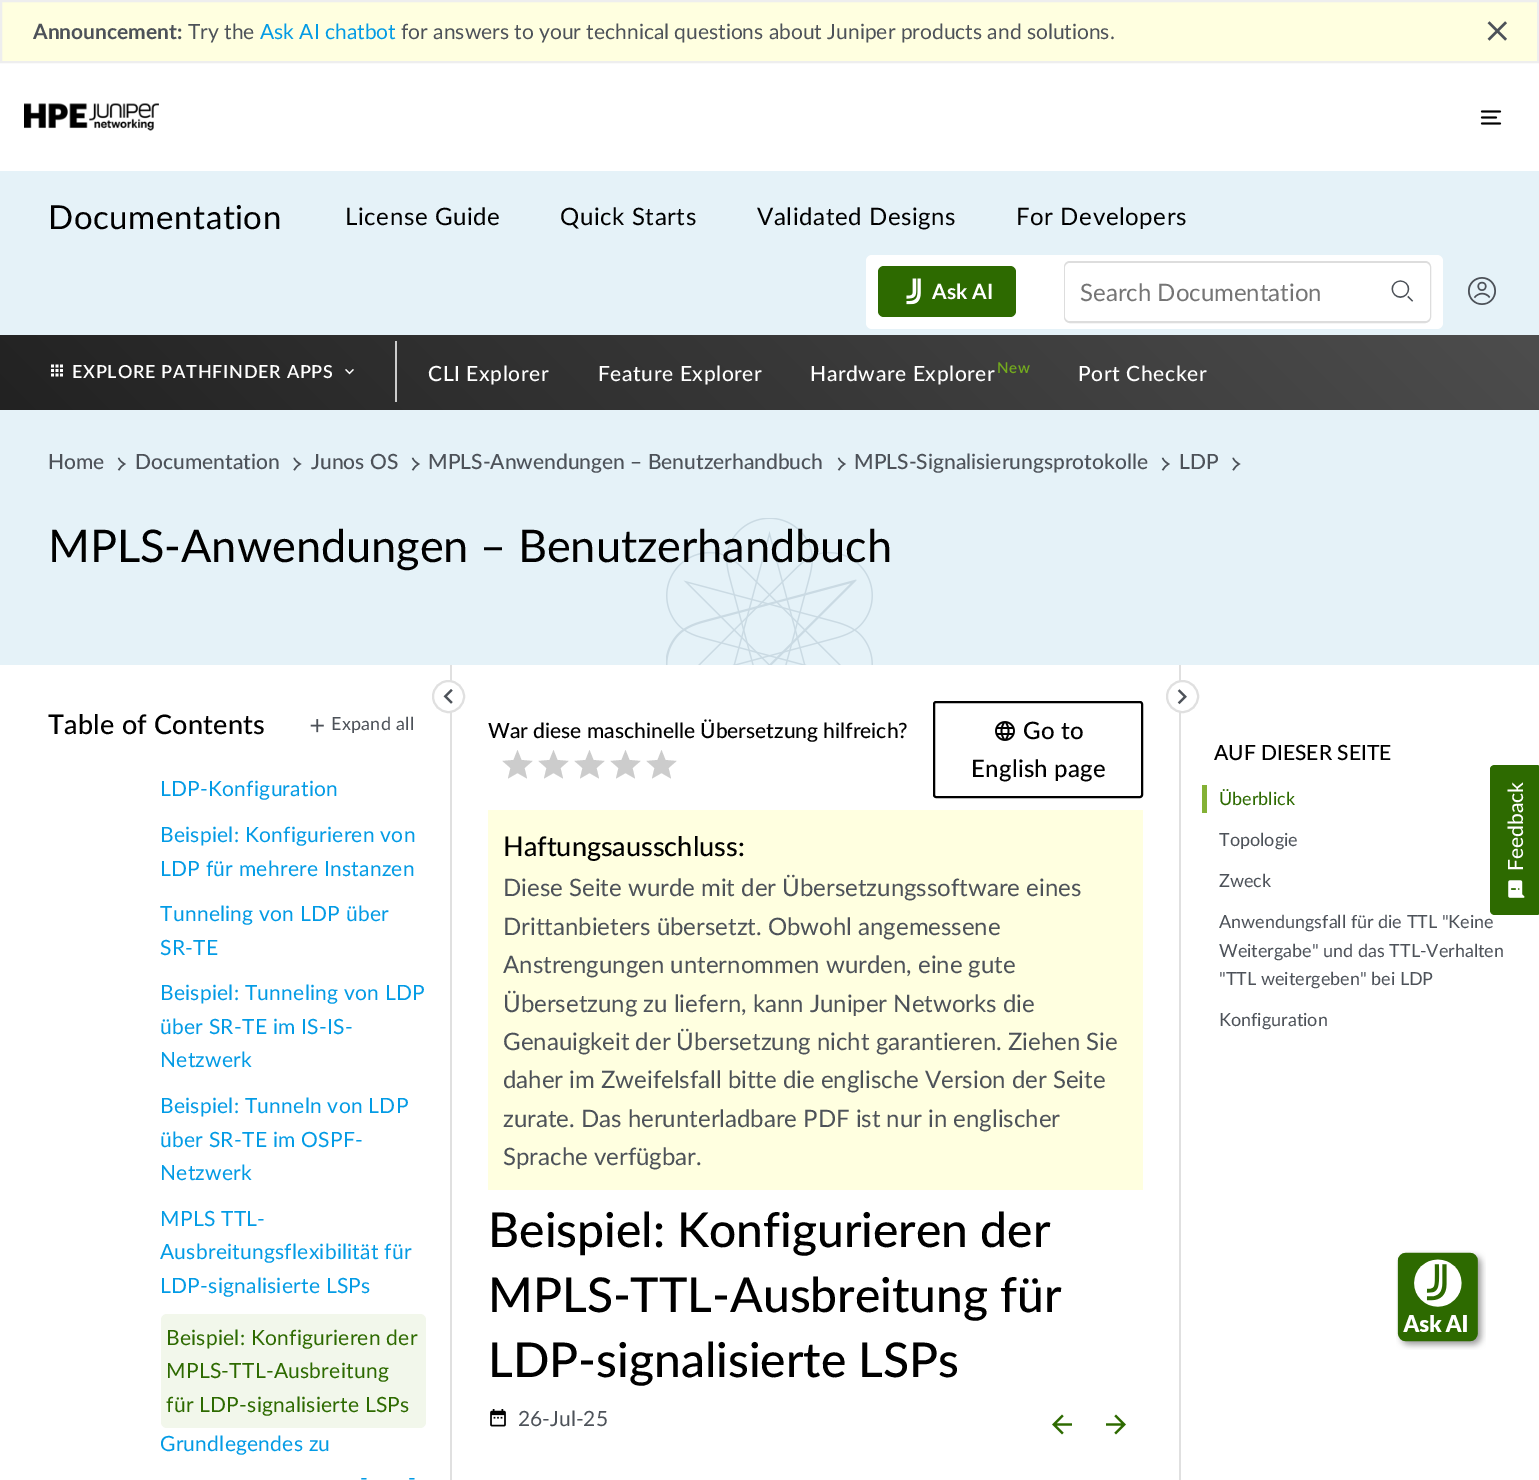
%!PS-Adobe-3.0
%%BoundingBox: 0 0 1539 1480
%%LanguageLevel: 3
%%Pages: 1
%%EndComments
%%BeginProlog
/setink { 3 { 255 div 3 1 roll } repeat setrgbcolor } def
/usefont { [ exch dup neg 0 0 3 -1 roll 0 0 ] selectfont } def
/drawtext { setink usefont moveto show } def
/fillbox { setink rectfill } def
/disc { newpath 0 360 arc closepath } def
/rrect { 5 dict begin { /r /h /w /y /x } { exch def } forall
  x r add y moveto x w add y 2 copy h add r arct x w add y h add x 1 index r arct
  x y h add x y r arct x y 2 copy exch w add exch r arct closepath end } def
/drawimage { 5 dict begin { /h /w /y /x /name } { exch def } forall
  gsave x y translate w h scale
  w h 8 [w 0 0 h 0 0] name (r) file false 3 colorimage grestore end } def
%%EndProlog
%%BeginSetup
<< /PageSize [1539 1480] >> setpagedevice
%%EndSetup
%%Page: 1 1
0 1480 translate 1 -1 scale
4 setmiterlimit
0 0 1539 1480 255 255 255 fillbox
255 255 224 setink
1 1 moveto 1538 1 lineto 1538 62 lineto 1 62 lineto closepath gsave fill grestore
238 238 238 setink
2 setlinewidth
stroke
(Announcement:) 33 39 /Lato-Bold 21 77 82 89 drawtext
(Try the) 188 39 /Lato-Regular 21 77 82 89 drawtext
(Ask AI chatbot) 260 39 /Lato-Regular 21 3 155 229 drawtext
(for answers to your technical questions about Juniper products and solutions.) 401 39 /Lato-Regular 21 77 82 89 drawtext
(assets/img1.rgb) 1487 21 20 20 drawimage
(assets/img2.rgb) 24 103 135 28 drawimage
(assets/img3.rgb) 1480 110 22 15 drawimage
0 171 1539 164 229 242 248 fillbox
/Lato-Regular 33 usefont
0 0 0 setink
48 229 moveto 0.6 0 (Documentation) ashow
/Lato-Regular 24 usefont
345 225 moveto 0.6 0 (License Guide) ashow
560 225 moveto 0.6 0 (Quick Starts) ashow
757 225 moveto 0.6 0 (Validated Designs) ashow
1016 225 moveto 0.6 0 (For Developers) ashow
255 255 255 setink
866 255 577 74 6 rrect fill
45 106 0 setink
878 266 138 51 6 rrect fill
(assets/img4.rgb) 906 278 15 27 drawimage
(Ask AI) 932 299 /Lato-Bold 21 255 255 255 drawtext
221 221 221 setink
1065 262 365 60 5 rrect stroke
255 255 255 setink
1065 263 365 58 5 rrect fill
(Search Documentation) 1080 301 /Lato-Regular 24 117 117 117 drawtext
(assets/img5.rgb) 1391 280 23 22 drawimage
(assets/img6.rgb) 1468 277 28 28 drawimage
gsave 0 335 moveto 1539 335 lineto 1539 410 lineto 0 410 lineto closepath clip newpath
<< /ShadingType 2 /ColorSpace /DeviceRGB /Coords [366 776 1173 -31] /Extend [true true] /Function << /FunctionType 2 /Domain [0 1] /C0 [0.133 0.133 0.133] /C1 [0.302 0.302 0.302] /N 1 >> >> shfill grestore
(assets/img7.rgb) 51 364 12 13 drawimage
/Lato-SemiBold 18 usefont
255 255 255 setink
72 378 moveto 0.75 0 (EXPLORE PATHFINDER APPS) ashow
(assets/img8.rgb) 345 369 9 6 drawimage
395 341 2 61 204 204 204 fillbox
/Lato-Medium 21 usefont
255 255 255 setink
428 381 moveto 0.6 0 (CLI Explorer) ashow
598 381 moveto 0.6 0 (Feature Explorer) ashow
810 381 moveto 0.6 0 (Hardware Explorer) ashow
/Lato-SemiBold 15 usefont
115 170 30 setink
997 373 moveto 0.6 0 (New) ashow
/Lato-Medium 21 usefont
255 255 255 setink
1078 381 moveto 0.6 0 (Port Checker) ashow
0 410 1539 255 229 242 248 fillbox
(assets/img9.rgb) 666 518 207 147 drawimage
(Home) 48 469 /Lato-Medium 21 77 82 89 drawtext
(assets/img10.rgb) 117 457 9 14 drawimage
(Documentation) 135 469 /Lato-Medium 21 77 82 89 drawtext
(assets/img11.rgb) 293 457 9 14 drawimage
(Junos OS) 311 469 /Lato-Medium 21 77 82 89 drawtext
(assets/img10.rgb) 411 457 9 14 drawimage
(MPLS-Anwendungen – Benutzerhandbuch) 428 469 /Lato-Medium 21 77 82 89 drawtext
(assets/img10.rgb) 837 457 9 14 drawimage
(MPLS-Signalisierungsprotokolle) 854 469 /Lato-Medium 21 77 82 89 drawtext
(assets/img10.rgb) 1161 457 9 14 drawimage
(LDP) 1179 469 /Lato-Medium 21 77 82 89 drawtext
(assets/img11.rgb) 1232 457 9 14 drawimage
(MPLS-Anwendungen – Benutzerhandbuch) 48 562 /Lato-Regular 45 0 0 0 drawtext
450 665 2 815 224 224 224 fillbox
255 255 255 setink
448.5 696.5 15.5 disc gsave fill grestore
224 224 224 setink
stroke
(assets/img12.rgb) 443 689 10 15 drawimage
/Lato-Medium 27 usefont
0 0 0 setink
48 734 moveto 0.25 0 (Table of Contents) ashow
(assets/img13.rgb) 310 719 14 14 drawimage
/Lato-Regular 18 usefont
77 82 89 setink
331 730 moveto 0.25 0 (Expand all) ashow
/Lato-Regular 21 usefont
3 155 229 setink
160 796 moveto 0.25 0 (LDP-Konfiguration) ashow
160 842 moveto 0.25 0 (Beispiel: Konfigurieren von) ashow
160 876 moveto 0.25 0 (LDP für mehrere Instanzen) ashow
160 921 moveto 0.25 0 (Tunneling von LDP über) ashow
160 955 moveto 0.25 0 (SR-TE) ashow
160 1000 moveto 0.25 0 (Beispiel: Tunneling von LDP) ashow
160 1034 moveto 0.25 0 (über SR-TE im IS-IS-) ashow
160 1067 moveto 0.25 0 (Netzwerk) ashow
160 1113 moveto 0.25 0 (Beispiel: Tunneln von LDP) ashow
160 1147 moveto 0.25 0 (über SR-TE im OSPF-) ashow
160 1180 moveto 0.25 0 (Netzwerk) ashow
160 1226 moveto 0.25 0 (MPLS TTL-) ashow
160 1259 moveto 0.25 0 (Ausbreitungsflexibilität für) ashow
160 1293 moveto 0.25 0 (LDP-signalisierte LSPs) ashow
242 247 235 setink
161 1314 265 114 6 rrect fill
45 106 0 setink
166 1345 moveto 0.25 0 (Beispiel: Konfigurieren der) ashow
166 1378 moveto 0.25 0 (MPLS-TTL-Ausbreitung) ashow
166 1412 moveto 0.25 0 (für LDP-signalisierte LSPs) ashow
3 155 229 setink
160 1451 moveto 0.25 0 (Grundlegendes zu) ashow
360 1485 moveto 0.25 0 (-) ashow
408 1485 moveto 0.25 0 (-) ashow
(War diese maschinelle Übersetzung hilfreich?) 488 738 /Lato-Medium 21 0 0 0 drawtext
204 204 204 setink
517.5 773 moveto 508 778.5 lineto 510.5 768 lineto 502.5 761 lineto 513.5 760 lineto 517.5 750 lineto 521.5 760 lineto 532.5 761 lineto 524.5 768 lineto 527 778.5 lineto closepath fill
553.5 773 moveto 544 778.5 lineto 546.5 768 lineto 538.5 761 lineto 549.5 760 lineto 553.5 750 lineto 557.5 760 lineto 568.5 761 lineto 560.5 768 lineto 563 778.5 lineto closepath fill
589.5 773 moveto 580 778.5 lineto 582.5 768 lineto 574.5 761 lineto 585.5 760 lineto 589.5 750 lineto 593.5 760 lineto 604.5 761 lineto 596.5 768 lineto 599 778.5 lineto closepath fill
625.5 773 moveto 616 778.5 lineto 618.5 768 lineto 610.5 761 lineto 621.5 760 lineto 625.5 750 lineto 629.5 760 lineto 640.5 761 lineto 632.5 768 lineto 635 778.5 lineto closepath fill
661.5 773 moveto 652 778.5 lineto 654.5 768 lineto 646.5 761 lineto 657.5 760 lineto 661.5 750 lineto 665.5 760 lineto 676.5 761 lineto 668.5 768 lineto 671 778.5 lineto closepath fill
0 0 0 setink
934 702 208 95 2 rrect stroke
(assets/img14.rgb) 995 721 20 20 drawimage
/Lato-Medium 24 usefont
1023 739 moveto 0.25 0 (Go to) ashow
971 777 moveto 0.25 0 (English page) ashow
488 810 655 380 255 255 224 fillbox
(Haftungsausschluss:) 503 856 /Lato-Medium 27 0 0 0 drawtext
(Diese Seite wurde mit der Übersetzungssoftware eines) 503 896 /Lato-Regular 24 77 82 89 drawtext
(Drittanbieters übersetzt. Obwohl angemessene) 503 935 /Lato-Regular 24 77 82 89 drawtext
(Anstrengungen unternommen wurden, eine gute) 503 973 /Lato-Regular 24 77 82 89 drawtext
(Übersetzung zu liefern, kann Juniper Networks die) 503 1012 /Lato-Regular 24 77 82 89 drawtext
(Genauigkeit der Übersetzung nicht garantieren. Ziehen Sie) 503 1050 /Lato-Regular 24 77 82 89 drawtext
(daher im Zweifelsfall bitte die englische Version der Seite) 503 1088 /Lato-Regular 24 77 82 89 drawtext
(zurate. Das herunterladbare PDF ist nur in englischer) 503 1127 /Lato-Regular 24 77 82 89 drawtext
(Sprache verfügbar.) 503 1165 /Lato-Regular 24 77 82 89 drawtext
(Beispiel: Konfigurieren der) 488 1247 /Lato-Medium 48 0 0 0 drawtext
(MPLS-TTL-Ausbreitung für) 488 1312 /Lato-Medium 48 0 0 0 drawtext
(LDP-signalisierte LSPs) 488 1377 /Lato-Medium 48 0 0 0 drawtext
(assets/img15.rgb) 490 1409 16 18 drawimage
(26-Jul-25) 518 1426 /Lato-Regular 21 77 82 89 drawtext
(assets/img16.rgb) 1052 1414 20 21 drawimage
(assets/img17.rgb) 1106 1414 20 21 drawimage
1179 665 2 815 224 224 224 fillbox
255 255 255 setink
1182.5 696.5 15.5 disc gsave fill grestore
224 224 224 setink
stroke
(assets/img18.rgb) 1177 689 10 16 drawimage
(AUF DIESER SEITE) 1214 760 /Lato-Medium 21 0 0 0 drawtext
1202 785 5 28 132 177 53 fillbox
(Überblick) 1219 805 /Lato-Regular 18 45 106 0 drawtext
(Topologie) 1219 846 /Lato-Regular 18 77 82 89 drawtext
(Zweck) 1219 887 /Lato-Regular 18 77 82 89 drawtext
(Anwendungsfall für die TTL "Keine) 1219 928 /Lato-Regular 18 77 82 89 drawtext
(Weitergabe" und das TTL-Verhalten) 1219 957 /Lato-Regular 18 77 82 89 drawtext
("TTL weitergeben" bei LDP) 1219 985 /Lato-Regular 18 77 82 89 drawtext
(Konfiguration) 1219 1026 /Lato-Regular 18 77 82 89 drawtext
(assets/img19.rgb) 1396 1250 90 100 drawimage
45 106 0 setink
1490 910 moveto 1490 769 lineto 1490 767 1492 765 1495 765 curveto 1537 765 lineto 1539 765 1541 767 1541 769 curveto 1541 910 lineto 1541 913 1539 915 1537 915 curveto 1495 915 lineto 1492 915 1490 913 1490 910 curveto closepath fill
/Lato-Medium 21 usefont
255 255 255 setink
gsave 1523 871 translate -90 rotate 0 0 moveto (Feedback) show grestore
(assets/img20.rgb) 1508 880 17 18 drawimage
showpage
%%EOF
